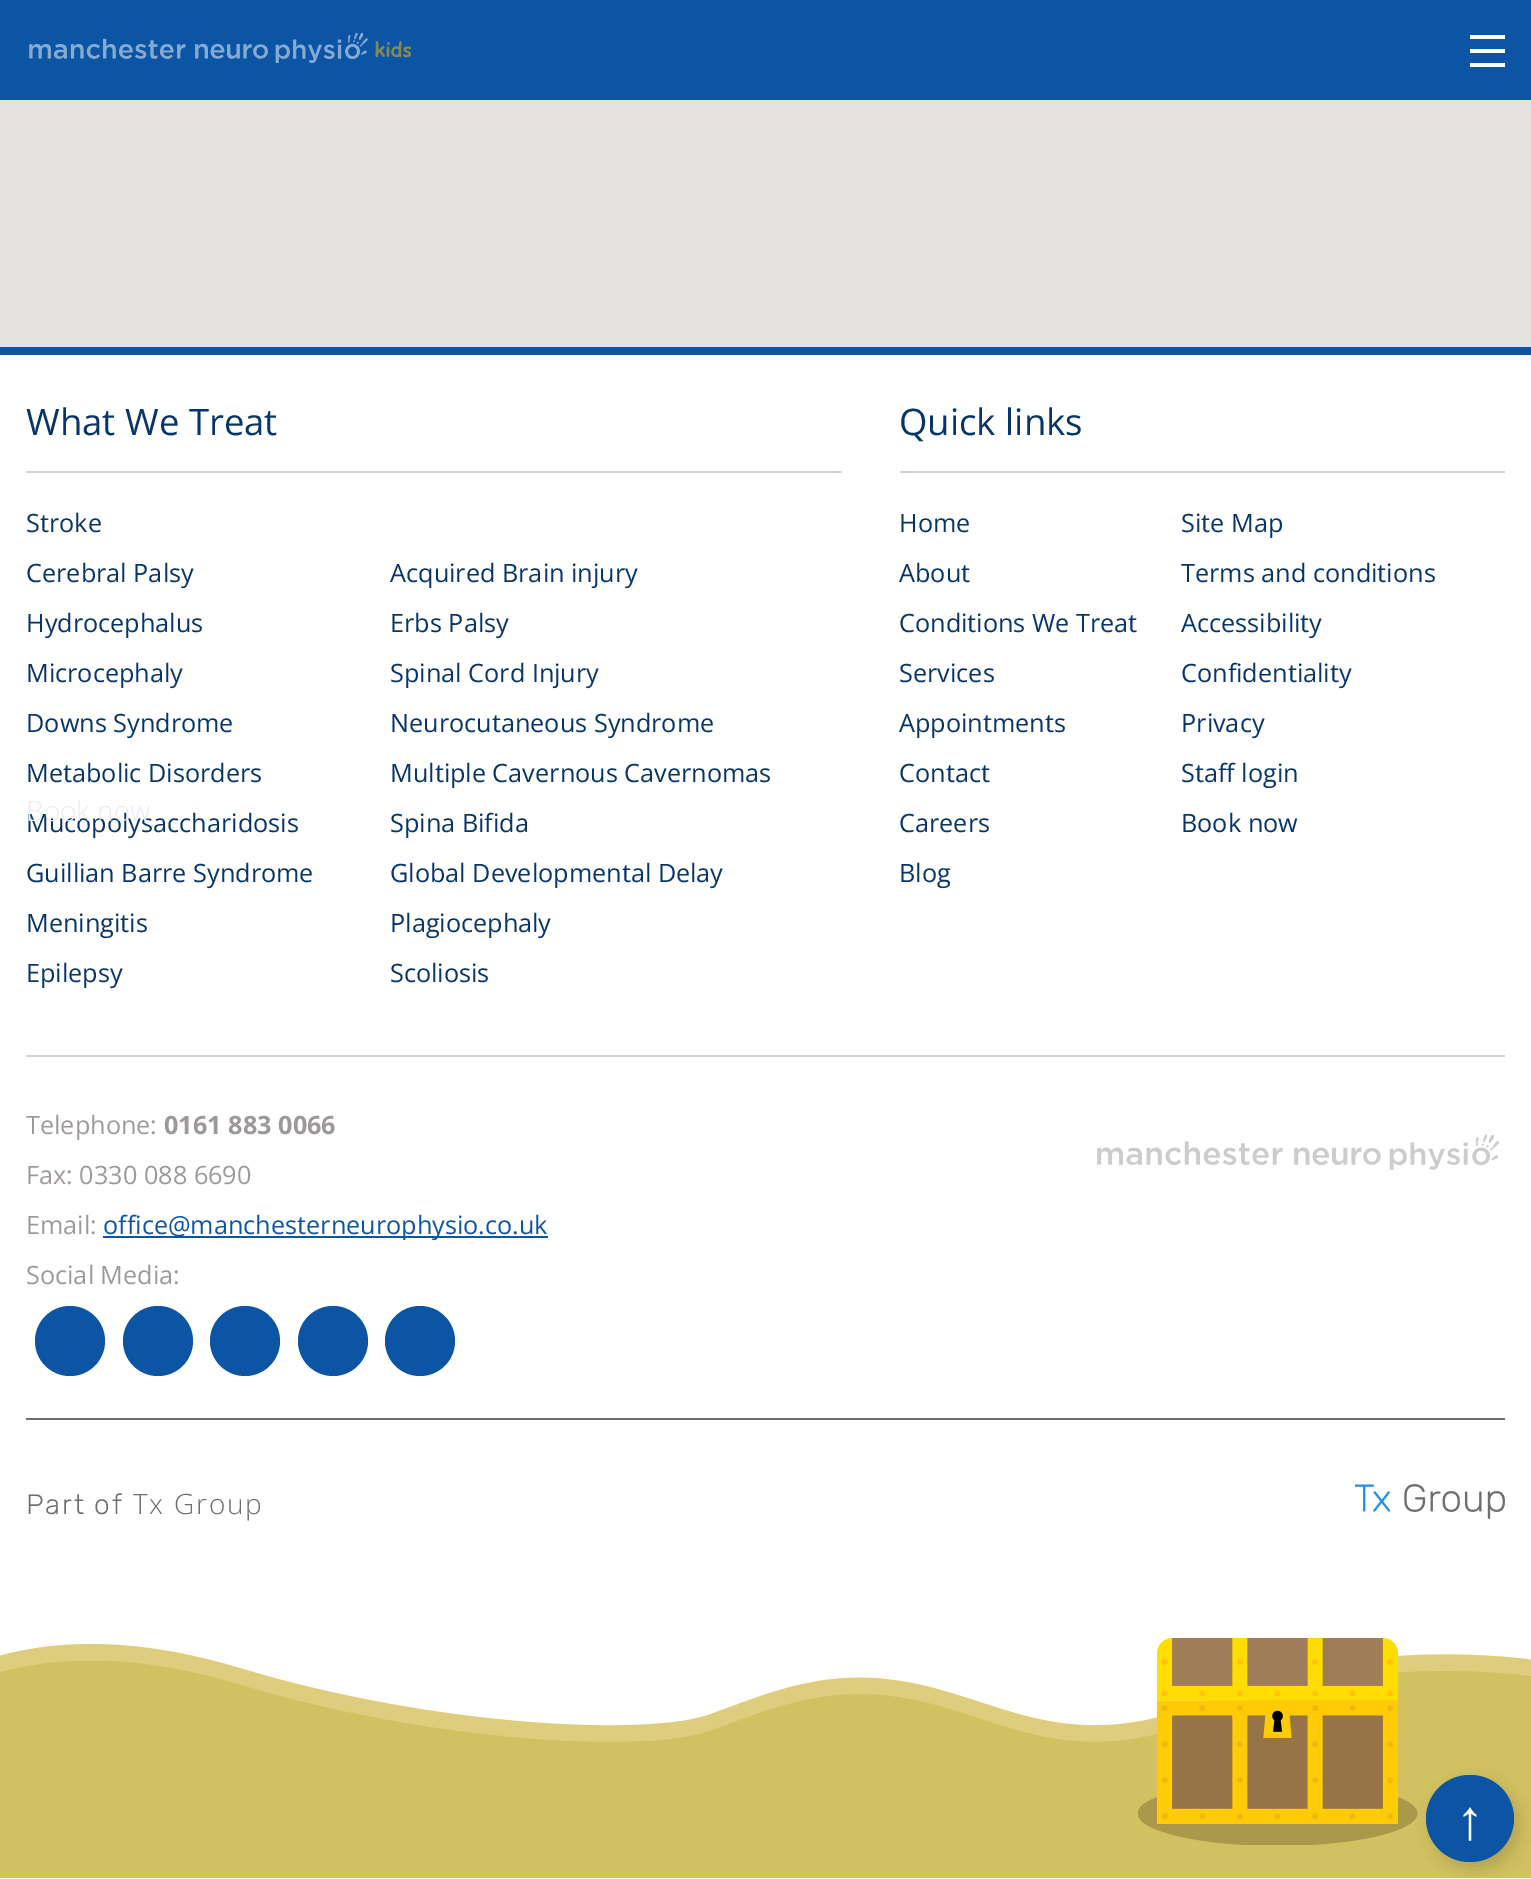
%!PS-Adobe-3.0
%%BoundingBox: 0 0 1531 1879
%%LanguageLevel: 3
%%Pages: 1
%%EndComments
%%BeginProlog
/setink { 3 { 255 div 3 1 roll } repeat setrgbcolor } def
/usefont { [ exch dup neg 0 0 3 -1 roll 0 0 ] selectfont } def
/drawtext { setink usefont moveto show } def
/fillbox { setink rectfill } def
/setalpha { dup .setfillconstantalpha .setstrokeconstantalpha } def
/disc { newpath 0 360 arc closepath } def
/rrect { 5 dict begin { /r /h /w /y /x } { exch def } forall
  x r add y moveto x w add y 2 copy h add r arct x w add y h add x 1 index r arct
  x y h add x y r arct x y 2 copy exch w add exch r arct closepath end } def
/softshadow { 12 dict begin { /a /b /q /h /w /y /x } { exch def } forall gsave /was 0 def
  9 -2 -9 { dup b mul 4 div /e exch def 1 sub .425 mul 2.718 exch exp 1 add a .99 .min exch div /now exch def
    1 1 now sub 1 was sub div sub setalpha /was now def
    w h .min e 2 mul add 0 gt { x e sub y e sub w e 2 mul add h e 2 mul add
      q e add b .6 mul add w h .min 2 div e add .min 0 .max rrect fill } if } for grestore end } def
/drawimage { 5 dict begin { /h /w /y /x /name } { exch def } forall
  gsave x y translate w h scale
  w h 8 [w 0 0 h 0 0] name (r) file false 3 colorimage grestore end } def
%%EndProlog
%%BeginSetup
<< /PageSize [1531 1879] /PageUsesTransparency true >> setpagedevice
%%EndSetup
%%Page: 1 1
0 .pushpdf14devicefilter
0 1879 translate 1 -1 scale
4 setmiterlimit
0 0 1531 1879 255 255 255 fillbox
0 347 1531 8 12 85 165 fillbox
0 100 1531 247 229 227 223 fillbox
26 471 816 2 218 206 206 fillbox
(What We Treat) 26 435 /OpenSans-Regular 36.5 7 53 103 drawtext
(Stroke) 26 532 /OpenSans-Regular 25.25 7 53 103 drawtext
(Cerebral Palsy) 26 582 /OpenSans-Regular 25.25 7 53 103 drawtext
(Hydrocephalus) 26 632 /OpenSans-Regular 25.25 7 53 103 drawtext
(Microcephaly) 26 682 /OpenSans-Regular 25.25 7 53 103 drawtext
(Downs Syndrome) 26 732 /OpenSans-Regular 25.25 7 53 103 drawtext
(Metabolic Disorders) 26 782 /OpenSans-Regular 25.25 7 53 103 drawtext
(Mucopolysaccharidosis) 26 832 /OpenSans-Regular 25.25 7 53 103 drawtext
(Guillian Barre Syndrome) 26 882 /OpenSans-Regular 25.25 7 53 103 drawtext
(Meningitis) 26 932 /OpenSans-Regular 25.25 7 53 103 drawtext
(Epilepsy) 26 982 /OpenSans-Regular 25.25 7 53 103 drawtext
(Acquired Brain injury) 390 582 /OpenSans-Regular 25.25 7 53 103 drawtext
(Erbs Palsy) 390 632 /OpenSans-Regular 25.25 7 53 103 drawtext
(Spinal Cord Injury) 390 682 /OpenSans-Regular 25.25 7 53 103 drawtext
(Neurocutaneous Syndrome) 390 732 /OpenSans-Regular 25.25 7 53 103 drawtext
(Multiple Cavernous Cavernomas) 390 782 /OpenSans-Regular 25.25 7 53 103 drawtext
(Spina Bifida) 390 832 /OpenSans-Regular 25.25 7 53 103 drawtext
(Global Developmental Delay) 390 882 /OpenSans-Regular 25.25 7 53 103 drawtext
(Plagiocephaly) 390 932 /OpenSans-Regular 25.25 7 53 103 drawtext
(Scoliosis) 390 982 /OpenSans-Regular 25.25 7 53 103 drawtext
900 471 605 2 218 206 206 fillbox
(Quick links) 899 435 /OpenSans-Regular 36.5 7 53 103 drawtext
(Home) 899 532 /OpenSans-Regular 25.25 7 53 103 drawtext
(Site Map) 1181 532 /OpenSans-Regular 25.25 7 53 103 drawtext
(About) 899 582 /OpenSans-Regular 25.25 7 53 103 drawtext
(Terms and conditions) 1181 582 /OpenSans-Regular 25.25 7 53 103 drawtext
(Conditions We Treat) 899 632 /OpenSans-Regular 25.25 7 53 103 drawtext
(Accessibility) 1181 632 /OpenSans-Regular 25.25 7 53 103 drawtext
(Services) 899 682 /OpenSans-Regular 25.25 7 53 103 drawtext
(Confidentiality) 1181 682 /OpenSans-Regular 25.25 7 53 103 drawtext
(Appointments) 899 732 /OpenSans-Regular 25.25 7 53 103 drawtext
(Privacy) 1181 732 /OpenSans-Regular 25.25 7 53 103 drawtext
(Contact) 899 782 /OpenSans-Regular 25.25 7 53 103 drawtext
(Staff login) 1181 782 /OpenSans-Regular 25.25 7 53 103 drawtext
(Careers) 899 832 /OpenSans-Regular 25.25 7 53 103 drawtext
(Book now) 1181 832 /OpenSans-Regular 25.25 7 53 103 drawtext
(Blog) 899 882 /OpenSans-Regular 25.25 7 53 103 drawtext
26 1055 1479 2 218 206 206 fillbox
(Telephone:) 26 1134 /OpenSans-Regular 25.25 158 153 153 drawtext
(0161 883 0066) 164 1134 /OpenSans-Bold 25.25 158 153 153 drawtext
(Fax: 0330 088 6690) 26 1184 /OpenSans-Regular 25.25 158 153 153 drawtext
(Email:) 26 1234 /OpenSans-Regular 25.25 158 153 153 drawtext
103 1236 445 2 12 85 165 fillbox
(office@manchesterneurophysio.co.uk) 103 1234 /OpenSans-Regular 25.25 12 85 165 drawtext
(Social Media:) 26 1284 /OpenSans-Regular 25.25 158 153 153 drawtext
12 85 165 setink
70 1341 35 disc fill
158 1341 35 disc fill
245 1341 35 disc fill
333 1341 35 disc fill
420 1341 35 disc fill
(assets/img1.rgb) 1097 1134 403 36 drawimage
26 1418 1479 2 110 110 110 fillbox
/Rubik-Light 28 usefont
26 1514 moveto 1.75 0 (Part of) ashow
/OpenSans-Light 28 usefont
133 1514 moveto 1.75 0 (Tx Group) ashow
(assets/img2.rgb) 1355 1484 150 35 drawimage
(assets/img4.rgb) 0 1643 1531 235 drawimage
(assets/img3.rgb) 1138 1638 280 207 drawimage
0 0 0 setink
1432 1782 87 87 43.5 8 0.15 softshadow
12 85 165 setink
1426 1775 88 87 43.5 rrect fill
(↑) 1456 1839 /LiberationSans-Regular 56 255 255 255 drawtext
0 0 1531 100 12 85 165 fillbox
(assets/img5.rgb) 29 32 382 31 drawimage
1470 35 35 4 255 255 255 fillbox
1470 49 35 4 255 255 255 fillbox
1470 63 35 4 255 255 255 fillbox
(Book now) 26 821 /OpenSans-Light 28 233 237 241 drawtext
.poppdf14devicefilter showpage
%%EOF
